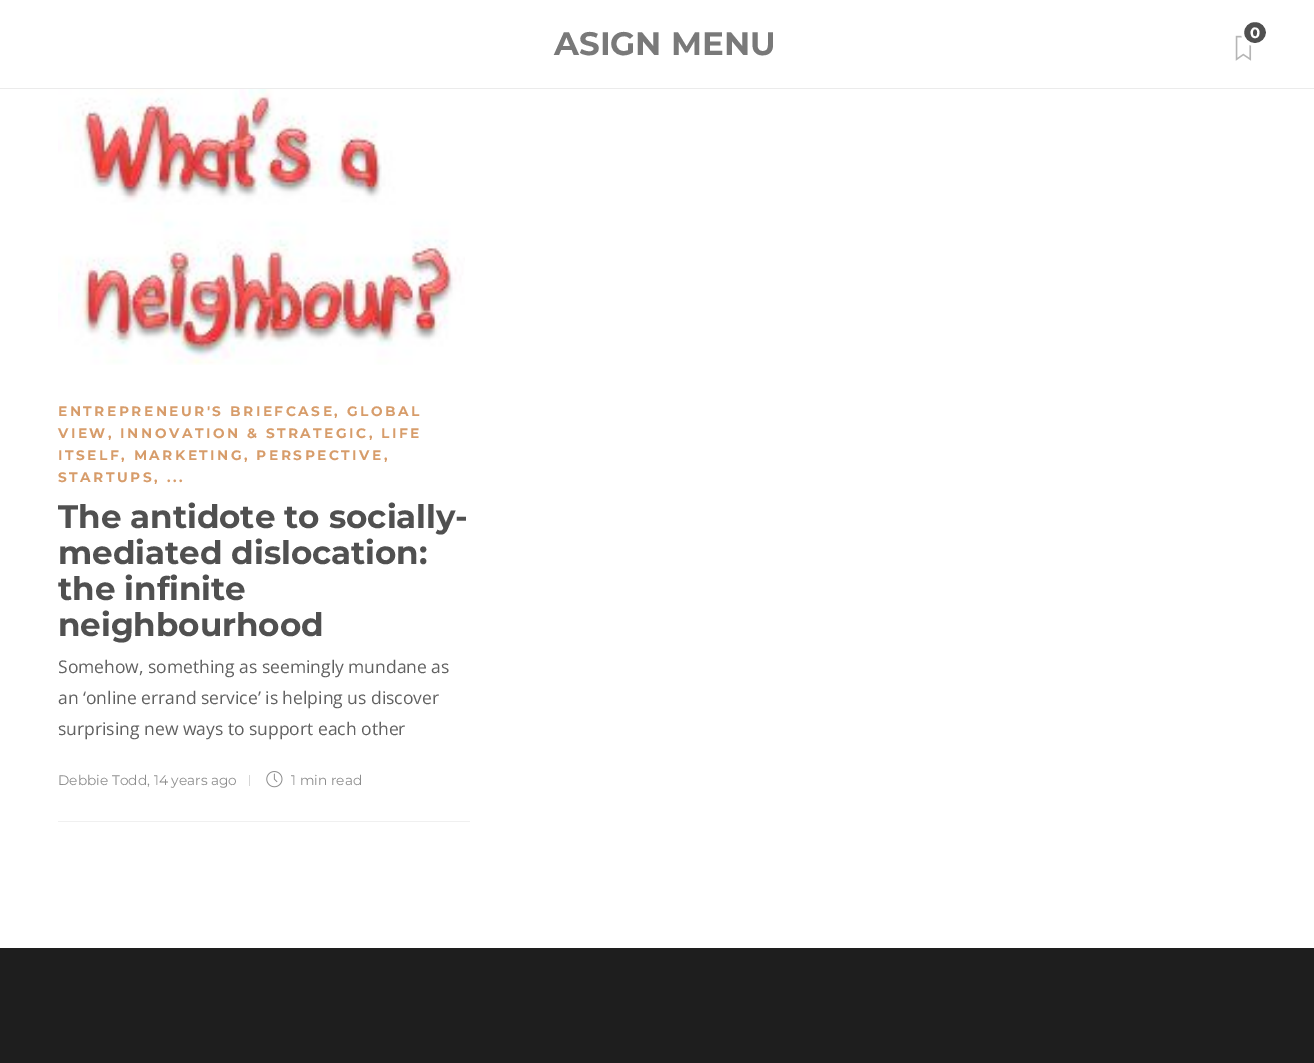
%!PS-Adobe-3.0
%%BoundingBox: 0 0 1314 1063
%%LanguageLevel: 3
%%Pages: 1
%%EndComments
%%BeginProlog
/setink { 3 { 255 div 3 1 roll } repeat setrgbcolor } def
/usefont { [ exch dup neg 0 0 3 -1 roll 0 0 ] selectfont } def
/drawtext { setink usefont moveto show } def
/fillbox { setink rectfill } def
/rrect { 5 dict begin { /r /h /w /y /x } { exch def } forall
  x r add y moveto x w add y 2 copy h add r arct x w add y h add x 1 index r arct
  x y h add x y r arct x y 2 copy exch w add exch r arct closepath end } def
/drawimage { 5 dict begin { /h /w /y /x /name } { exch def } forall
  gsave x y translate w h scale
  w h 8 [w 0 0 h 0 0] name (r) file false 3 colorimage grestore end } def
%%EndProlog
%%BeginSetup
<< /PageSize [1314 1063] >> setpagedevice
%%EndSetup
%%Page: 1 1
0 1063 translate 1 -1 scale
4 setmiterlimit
0 0 1314 1063 255 255 255 fillbox
0 88 1314 1 235 235 235 fillbox
(ASIGN MENU) 554 55 /Montserrat-Bold 32.5 121 121 121 drawtext
(assets/img1.rgb) 1235 35 17 26 drawimage
80 80 80 setink
1242.5 20.5 25 24 12 rrect gsave fill grestore
255 255 255 setink
3 setlinewidth
stroke
(0) 1250 38 /Montserrat-Bold 15 255 255 255 drawtext
58 821 412 1 240 240 240 fillbox
(assets/img2.rgb) 58 89 407 276 drawimage
/Montserrat-Bold 13.75 usefont
215 156 106 setink
58 416 moveto 2.5 0 (ENTREPRENEUR'S BRIEFCASE, GLOBAL) ashow
58 438 moveto 2.5 0 (VIEW, INNOVATION & STRATEGIC, LIFE) ashow
58 460 moveto 2.5 0 (ITSELF, MARKETING, PERSPECTIVE,) ashow
58 482 moveto 2.5 0 (STARTUPS, ...) ashow
(The antidote to socially-) 58 528 /Montserrat-Bold 32.5 80 80 80 drawtext
(mediated dislocation:) 58 564 /Montserrat-Bold 32.5 80 80 80 drawtext
(the infinite) 58 600 /Montserrat-Bold 32.5 80 80 80 drawtext
(neighbourhood) 58 636 /Montserrat-Bold 32.5 80 80 80 drawtext
(Somehow, something as seemingly mundane as) 58 673 /OpenSans-Regular 17.5 97 97 97 drawtext
(an ‘online errand service’ is helping us discover) 58 704 /OpenSans-Regular 17.5 97 97 97 drawtext
(surprising new ways to support each other) 58 735 /OpenSans-Regular 17.5 97 97 97 drawtext
(Debbie Todd, 14 years ago) 58 785 /Montserrat-Regular 13.75 141 141 141 drawtext
249 775 1 11 214 214 214 fillbox
(assets/img3.rgb) 266 771 17 17 drawimage
(1 min read) 291 785 /Montserrat-Regular 13.75 141 141 141 drawtext
0 948 1314 115 30 30 30 fillbox
showpage
%%EOF
